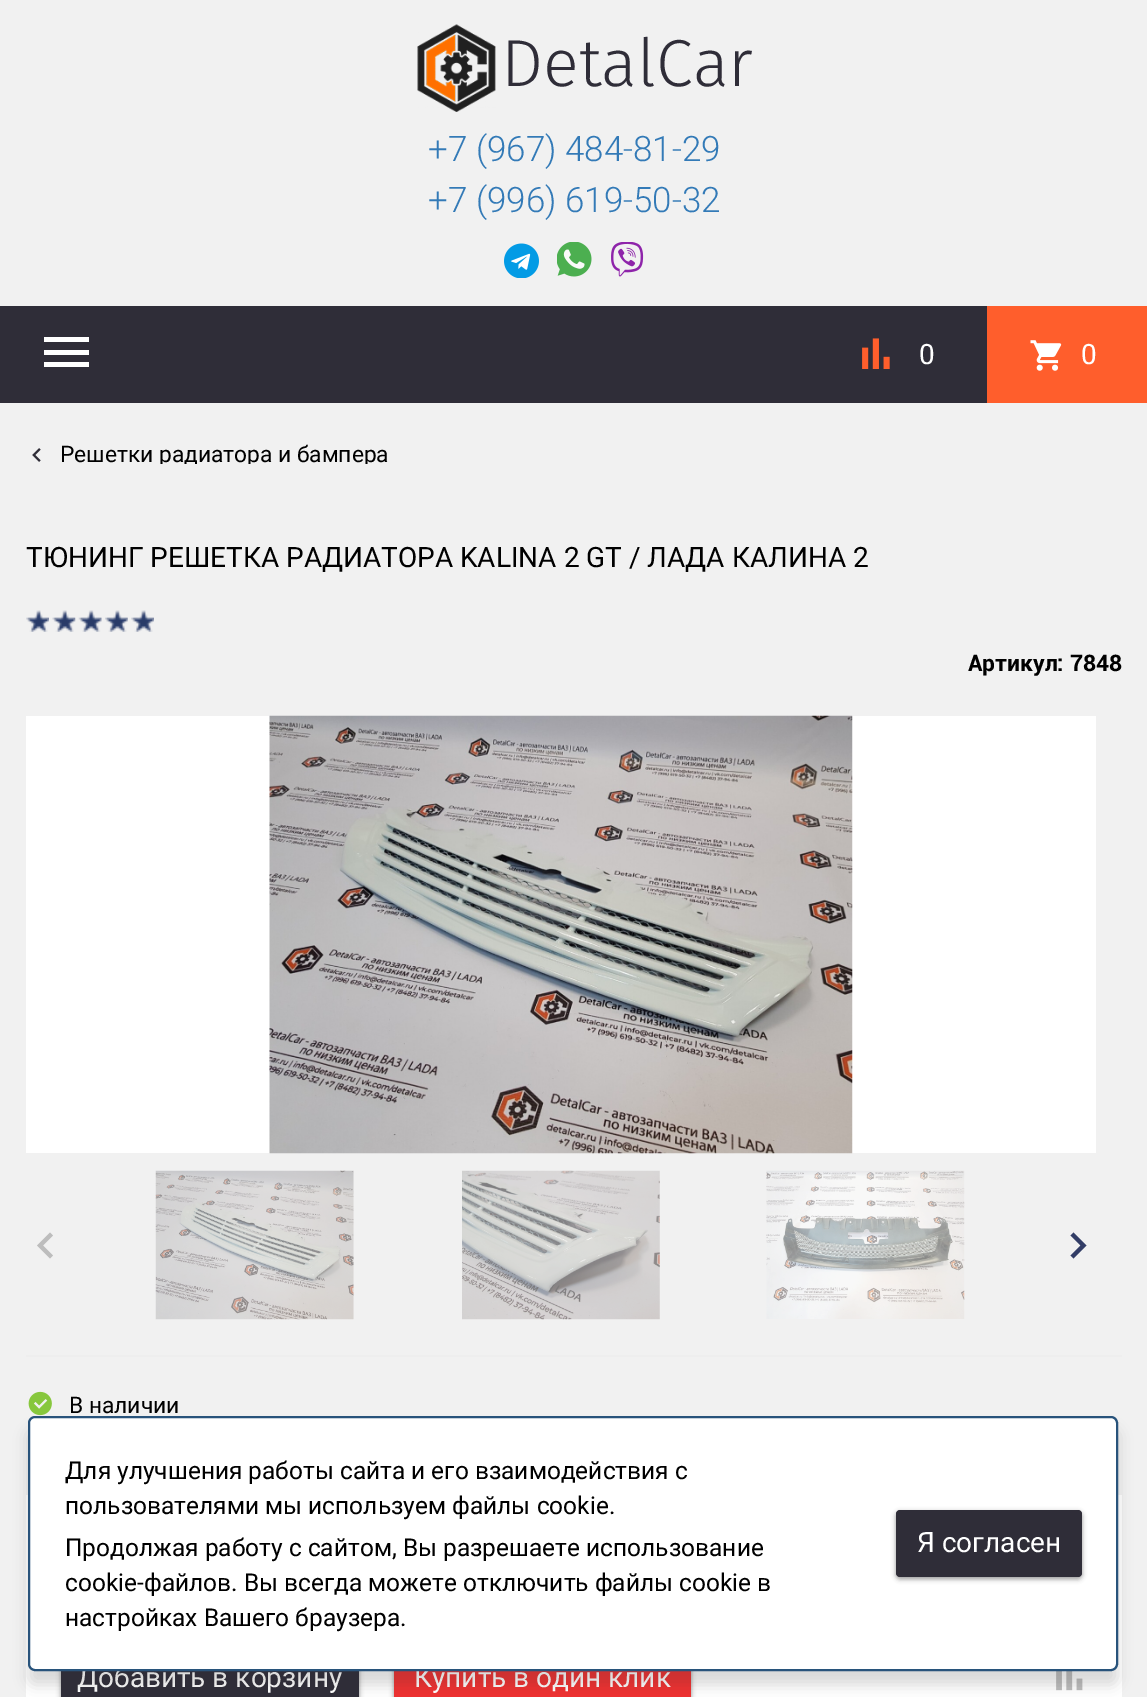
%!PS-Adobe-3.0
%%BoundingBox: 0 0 1147 1697
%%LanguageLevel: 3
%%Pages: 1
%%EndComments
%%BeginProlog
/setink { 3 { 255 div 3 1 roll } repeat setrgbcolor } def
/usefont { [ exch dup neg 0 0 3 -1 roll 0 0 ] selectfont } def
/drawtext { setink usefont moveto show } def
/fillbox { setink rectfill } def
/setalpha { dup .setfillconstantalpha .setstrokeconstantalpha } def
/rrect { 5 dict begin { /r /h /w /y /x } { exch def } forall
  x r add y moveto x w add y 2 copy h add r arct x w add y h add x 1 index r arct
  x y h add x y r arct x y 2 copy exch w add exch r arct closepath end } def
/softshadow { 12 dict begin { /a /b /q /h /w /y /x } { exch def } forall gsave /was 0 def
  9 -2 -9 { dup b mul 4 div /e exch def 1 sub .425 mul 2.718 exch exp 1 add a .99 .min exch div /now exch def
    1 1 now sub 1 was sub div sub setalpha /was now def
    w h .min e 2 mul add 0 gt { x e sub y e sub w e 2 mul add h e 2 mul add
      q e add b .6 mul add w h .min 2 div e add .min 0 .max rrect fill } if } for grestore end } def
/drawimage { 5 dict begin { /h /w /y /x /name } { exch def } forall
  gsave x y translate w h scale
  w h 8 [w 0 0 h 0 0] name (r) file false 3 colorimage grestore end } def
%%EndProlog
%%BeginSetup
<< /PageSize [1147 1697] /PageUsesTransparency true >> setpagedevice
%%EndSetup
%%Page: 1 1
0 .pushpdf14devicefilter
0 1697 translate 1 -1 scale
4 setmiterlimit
0 0 1147 1697 241 241 241 fillbox
(assets/img1.rgb) 417 24 79 88 drawimage
(DetalCar) 501 86 /FiraSans-Light 66.5 47 45 56 drawtext
(+7 \(967\) 484-81-29) 428 161 /Roboto-Light 35 51 122 183 drawtext
(+7 \(996\) 619-50-32) 428 212 /Roboto-Light 35 51 122 183 drawtext
(assets/img2.rgb) 504 243 35 35 drawimage
(assets/img3.rgb) 557 242 35 35 drawimage
(assets/img4.rgb) 611 242 33 35 drawimage
0 306 987 97 47 45 56 fillbox
255 255 255 setink
44 337 moveto 89 337 lineto 89 342 lineto 44 342 lineto closepath 44 350 moveto 89 350 lineto 89 355 lineto 44 355 lineto closepath 44 362 moveto 89 362 lineto 89 367 lineto 44 367 lineto closepath fill
(assets/img5.rgb) 862 338 28 31 drawimage
(0) 919 364 /Roboto-Regular 28 255 255 255 drawtext
987 306 160 97 255 94 44 fillbox
(assets/img6.rgb) 1030 340 32 31 drawimage
(0) 1081 364 /Roboto-Regular 28 255 255 255 drawtext
(assets/img7.rgb) 32 448 9 14 drawimage
gsave
26 420 1096 44 rectclip
(Решетки радиатора и бампера) 60 462 /Roboto-Regular 22.75 0 0 0 drawtext
grestore
(ТЮНИНГ РЕШЕТКА РАДИАТОРА KALINA 2 GT / ЛАДА КАЛИНА 2) 26 567 /Roboto-Regular 28 0 0 0 drawtext
(assets/img8.rgb) 26 610 23 22 drawimage
(assets/img9.rgb) 52 610 24 22 drawimage
(assets/img10.rgb) 78 610 24 22 drawimage
(assets/img11.rgb) 105 610 23 22 drawimage
(assets/img8.rgb) 131 610 23 22 drawimage
(Артикул: 7848) 968 671 /roboto-Bold 22.75 0 0 0 drawtext
26 716 1070 437 255 255 255 fillbox
(assets/img12.rgb) 269 715 584 439 drawimage
189 189 189 setink
53 1255.5 moveto 43 1245.5 lineto 53 1235.5 lineto 50 1232.5 lineto 37 1245.5 lineto 50 1258.5 lineto closepath fill
(assets/img13.rgb) 155 1170 199 150 drawimage
(assets/img14.rgb) 462 1170 198 150 drawimage
(assets/img15.rgb) 766 1170 199 149 drawimage
50 61 102 setink
1070.5 1255.5 moveto 1080.5 1245.5 lineto 1070.5 1235.5 lineto 1073.5 1232.5 lineto 1086.5 1245.5 lineto 1073.5 1258.5 lineto closepath fill
26 1355 1096 2 238 238 238 fillbox
(assets/img16.rgb) 28 1391 24 25 drawimage
(В наличии) 69 1413 /Roboto-Regular 22.75 0 0 0 drawtext
26 1495 1096 202 255 255 255 fillbox
0 0 0 setink
61 1645 298 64 4 2.5 0.4 softshadow
61 1671 298 26 47 45 56 fillbox
(Добавить в корзину) 77 1687 /Roboto-Regular 28 255 255 255 drawtext
0 0 0 setink
394 1645 297 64 4 2.5 0.4 softshadow
394 1671 297 26 238 49 49 fillbox
(Купить в один клик) 414 1687 /Roboto-Regular 28 255 255 255 drawtext
(assets/img17.rgb) 1056 1671 27 20 drawimage
46 46 46 setink
28 1430 1090 255 7 7 0.18 softshadow
255 255 255 setink
29 1417 1088 253 6 rrect gsave fill grestore
40 83 123 setink
2 setlinewidth
stroke
(Для улучшения работы сайта и его взаимодействия с) 65 1479 /Roboto-Regular 24.5 0 0 0 drawtext
(пользователями мы используем файлы cookie.) 65 1514 /Roboto-Regular 24.5 0 0 0 drawtext
(Продолжая работу с сайтом, Вы разрешаете использование) 65 1556 /Roboto-Regular 24.5 0 0 0 drawtext
(cookie-файлов. Вы всегда можете отключить файлы cookie в) 65 1591 /Roboto-Regular 24.5 0 0 0 drawtext
(настройках Вашего браузера.) 65 1626 /Roboto-Regular 24.5 0 0 0 drawtext
896 1512 186 67 4 2.5 0.4 softshadow
47 45 56 setink
896 1510 186 67 4 rrect fill
(Я согласен) 917 1552 /Roboto-Regular 28 255 255 255 drawtext
.poppdf14devicefilter showpage
%%EOF
